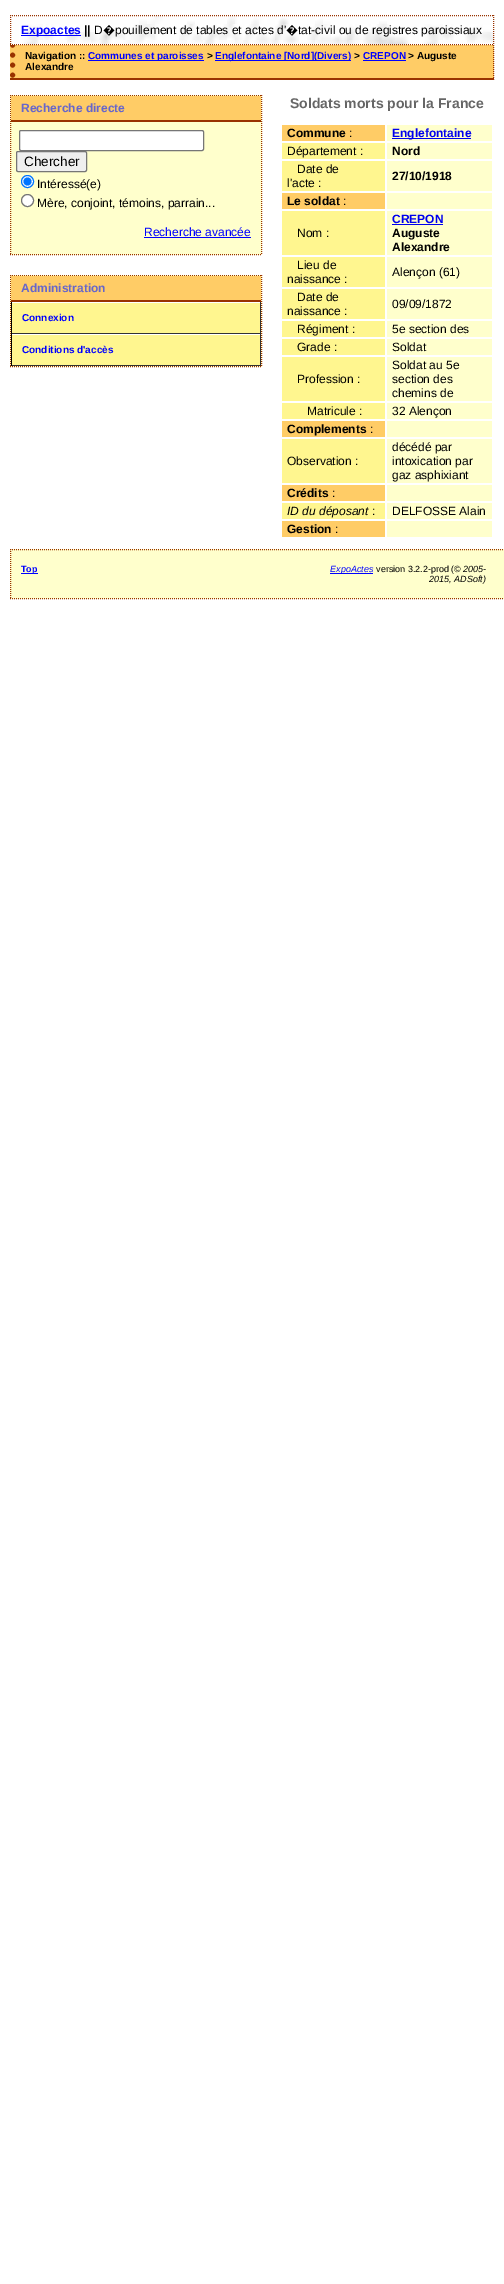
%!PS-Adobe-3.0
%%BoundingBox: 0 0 504 2284
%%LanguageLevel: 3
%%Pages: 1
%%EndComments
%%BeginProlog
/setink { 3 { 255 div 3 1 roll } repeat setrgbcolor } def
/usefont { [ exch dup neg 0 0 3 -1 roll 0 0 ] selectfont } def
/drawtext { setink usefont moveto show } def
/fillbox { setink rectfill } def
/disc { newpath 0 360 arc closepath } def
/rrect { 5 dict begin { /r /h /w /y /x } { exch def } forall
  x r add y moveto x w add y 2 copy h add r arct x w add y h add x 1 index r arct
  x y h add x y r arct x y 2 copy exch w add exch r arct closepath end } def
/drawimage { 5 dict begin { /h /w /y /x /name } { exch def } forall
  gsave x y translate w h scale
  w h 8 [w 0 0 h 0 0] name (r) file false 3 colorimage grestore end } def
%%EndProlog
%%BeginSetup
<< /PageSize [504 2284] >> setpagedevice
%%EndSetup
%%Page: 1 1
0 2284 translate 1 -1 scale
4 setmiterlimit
0 0 504 2284 255 255 255 fillbox
10 45 484 33 255 204 102 fillbox
153 51 0 setink
5 setlinewidth
1 setlinecap
[0 10] 0 setdash
12.5 45 moveto 12.5 80 lineto stroke
(assets/img1.rgb) 10 15 484 30 drawimage
1 setlinewidth
0 setlinecap
[1 1] 0 setdash
10 15.5 moveto 494 15.5 lineto stroke
493.5 15 moveto 493.5 45 lineto stroke
10 44.5 moveto 494 44.5 lineto stroke
10.5 15 moveto 10.5 45 lineto stroke
21 35 60 1 0 0 255 fillbox
(Expoactes) 21 34 /LiberationSans-Bold 12 0 0 255 drawtext
(||) 84 34 /LiberationSans-Bold 12 0 0 0 drawtext
(D) 94 34 /LiberationSans-Regular 12 0 0 0 drawtext
(�) 103 34 /NotoSans-Regular 12 0 0 0 drawtext
(pouillement de tables et actes d') 115 34 /LiberationSans-Regular 12 0 0 0 drawtext
(�) 286 34 /NotoSans-Regular 12 0 0 0 drawtext
(tat-civil ou de registres paroissiaux) 298 34 /LiberationSans-Regular 12 0 0 0 drawtext
153 51 0 setink
493.5 45 moveto 493.5 80 lineto stroke
10 78 484 2 153 51 0 fillbox
(Navigation ::) 25 59 /LiberationSans-Bold 10 0 0 0 drawtext
88 60 116 1 0 0 255 fillbox
(Communes et paroisses) 88 59 /LiberationSans-Bold 10 0 0 255 drawtext
(>) 207 59 /LiberationSans-Bold 10 0 0 0 drawtext
215 60 136 1 0 0 255 fillbox
(Englefontaine [Nord]\(Divers\)) 215 59 /LiberationSans-Bold 10 0 0 255 drawtext
(>) 354 59 /LiberationSans-Bold 10 0 0 0 drawtext
(CREPON) 363 59 /LiberationSans-Bold 10 0 0 255 drawtext
363 60 43 1 0 0 255 fillbox
(> Auguste) 408 59 /LiberationSans-Bold 10 0 0 0 drawtext
(Alexandre) 25 70 /LiberationSans-Bold 10 0 0 0 drawtext
10 95 252 160 255 255 204 fillbox
153 51 0 setink
10 95.5 moveto 262 95.5 lineto stroke
261.5 95 moveto 261.5 255 lineto stroke
10 254.5 moveto 262 254.5 lineto stroke
10.5 95 moveto 10.5 255 lineto stroke
11 96 250 24 255 204 102 fillbox
11 120 250 2 153 51 0 fillbox
(Recherche directe) 21 112 /LiberationSans-Bold 12 102 102 204 drawtext
255 255 255 setink
19.5 130.5 184 20 1.5 rrect gsave fill grestore
118 118 118 setink
[] 0 setdash
stroke
239 239 239 setink
16.5 151.5 70 20 1.5 rrect gsave fill grestore
118 118 118 setink
stroke
(Chercher) 24 166 /LiberationSans-Regular 13.5 0 0 0 drawtext
255 255 255 setink
27.5 181.5 6 disc gsave fill grestore
0 117 255 setink
stroke
27.5 181.5 4 disc fill
(Intéressé\(e\)) 37 188 /LiberationSans-Regular 12 0 0 0 drawtext
255 255 255 setink
27.5 200.5 6 disc gsave fill grestore
118 118 118 setink
stroke
(Mère, conjoint, témoins, parrain...) 37 207 /LiberationSans-Regular 12 0 0 0 drawtext
(Recherche avancée) 144 236 /LiberationSans-Regular 12 0 0 255 drawtext
144 237 107 1 0 0 255 fillbox
10 275 252 92 255 255 204 fillbox
153 51 0 setink
[1 1] 0 setdash
10 275.5 moveto 262 275.5 lineto stroke
261.5 275 moveto 261.5 367 lineto stroke
10 366.5 moveto 262 366.5 lineto stroke
10.5 275 moveto 10.5 367 lineto stroke
11 276 250 24 255 204 102 fillbox
11 300 250 2 153 51 0 fillbox
(Administration) 21 292 /LiberationSans-Bold 12 102 102 204 drawtext
12 303 248 30 255 246 143 fillbox
11 302 250 1 255 255 255 fillbox
260 302 1 32 51 51 51 fillbox
11 333 250 1 51 51 51 fillbox
11 302 1 32 0 0 0 fillbox
(Connexion) 22 321 /LiberationSans-Bold 10 0 0 255 drawtext
12 335 248 30 255 246 143 fillbox
11 334 250 1 255 255 255 fillbox
260 334 1 32 51 51 51 fillbox
11 365 250 1 51 51 51 fillbox
11 334 1 32 0 0 0 fillbox
(Conditions d'accès) 22 353 /LiberationSans-Bold 10 0 0 255 drawtext
(Soldats morts pour la France) 290 108 /LiberationSans-Bold 14 102 102 102 drawtext
282 125 103 16 255 204 102 fillbox
(Commune) 287 137 /LiberationSans-Bold 12 0 0 0 drawtext
(:) 349 137 /LiberationSans-Regular 12 0 0 0 drawtext
387 125 105 16 255 255 204 fillbox
392 138 79 1 0 0 238 fillbox
(Englefontaine) 392 137 /LiberationSans-Bold 12 0 0 238 drawtext
282 143 103 16 255 246 143 fillbox
(Département :) 287 155 /LiberationSans-Regular 12 0 0 0 drawtext
387 143 105 16 255 255 204 fillbox
(Nord) 392 155 /LiberationSans-Bold 12 0 0 0 drawtext
282 161 103 30 255 246 143 fillbox
(Date de) 297 173 /LiberationSans-Regular 12 0 0 0 drawtext
(l'acte :) 287 187 /LiberationSans-Regular 12 0 0 0 drawtext
387 161 105 30 255 255 204 fillbox
(27/10/1918) 392 180 /LiberationSans-Bold 12 0 0 0 drawtext
282 193 103 16 255 204 102 fillbox
(Le soldat) 287 205 /LiberationSans-Bold 12 0 0 0 drawtext
(:) 343 205 /LiberationSans-Regular 12 0 0 0 drawtext
387 193 105 16 255 255 204 fillbox
282 211 103 44 255 246 143 fillbox
(Nom :) 297 237 /LiberationSans-Regular 12 0 0 0 drawtext
387 211 105 44 255 255 204 fillbox
(CREPON) 392 223 /LiberationSans-Bold 12 0 0 238 drawtext
392 224 51 1 0 0 238 fillbox
(Auguste) 392 237 /LiberationSans-Bold 12 0 0 0 drawtext
(Alexandre) 392 251 /LiberationSans-Bold 12 0 0 0 drawtext
282 257 103 30 255 246 143 fillbox
(Lieu de) 297 269 /LiberationSans-Regular 12 0 0 0 drawtext
(naissance :) 287 283 /LiberationSans-Regular 12 0 0 0 drawtext
387 257 105 30 255 255 204 fillbox
(Alençon \(61\)) 392 276 /LiberationSans-Regular 12 0 0 0 drawtext
282 289 103 30 255 246 143 fillbox
(Date de) 297 301 /LiberationSans-Regular 12 0 0 0 drawtext
(naissance :) 287 315 /LiberationSans-Regular 12 0 0 0 drawtext
387 289 105 30 255 255 204 fillbox
(09/09/1872) 392 308 /LiberationSans-Regular 12 0 0 0 drawtext
282 321 103 16 255 246 143 fillbox
(Régiment :) 297 333 /LiberationSans-Regular 12 0 0 0 drawtext
387 321 105 16 255 255 204 fillbox
(5e section des) 392 333 /LiberationSans-Regular 12 0 0 0 drawtext
282 339 103 16 255 246 143 fillbox
(Grade :) 297 351 /LiberationSans-Regular 12 0 0 0 drawtext
387 339 105 16 255 255 204 fillbox
(Soldat) 392 351 /LiberationSans-Regular 12 0 0 0 drawtext
282 357 103 44 255 246 143 fillbox
(Profession :) 297 383 /LiberationSans-Regular 12 0 0 0 drawtext
387 357 105 44 255 255 204 fillbox
(Soldat au 5e) 392 369 /LiberationSans-Regular 12 0 0 0 drawtext
(section des) 392 383 /LiberationSans-Regular 12 0 0 0 drawtext
(chemins de) 392 397 /LiberationSans-Regular 12 0 0 0 drawtext
282 403 103 16 255 246 143 fillbox
(Matricule :) 307 415 /LiberationSans-Regular 12 0 0 0 drawtext
387 403 105 16 255 255 204 fillbox
(32 Alençon) 392 415 /LiberationSans-Regular 12 0 0 0 drawtext
282 421 103 16 255 204 102 fillbox
(Complements) 287 433 /LiberationSans-Bold 12 0 0 0 drawtext
(:) 370 433 /LiberationSans-Regular 12 0 0 0 drawtext
387 421 105 16 255 255 204 fillbox
282 439 103 44 255 246 143 fillbox
(Observation :) 287 465 /LiberationSans-Regular 12 0 0 0 drawtext
387 439 105 44 255 255 204 fillbox
(décédé par) 392 451 /LiberationSans-Regular 12 0 0 0 drawtext
(intoxication par) 392 465 /LiberationSans-Regular 12 0 0 0 drawtext
(gaz asphixiant) 392 479 /LiberationSans-Regular 12 0 0 0 drawtext
282 485 103 16 255 204 102 fillbox
(Crédits) 287 497 /LiberationSans-Bold 12 0 0 0 drawtext
(:) 332 497 /LiberationSans-Regular 12 0 0 0 drawtext
387 485 105 16 255 255 204 fillbox
282 503 103 16 255 246 143 fillbox
(ID du déposant) 287 515 /LiberationSans-Italic 12 0 0 0 drawtext
(:) 372 515 /LiberationSans-Regular 12 0 0 0 drawtext
387 503 105 16 255 255 204 fillbox
(DELFOSSE Alain) 392 515 /LiberationSans-Regular 12 0 0 0 drawtext
282 521 103 16 255 204 102 fillbox
(Gestion) 287 533 /LiberationSans-Bold 12 0 0 0 drawtext
(:) 335 533 /LiberationSans-Regular 12 0 0 0 drawtext
387 521 105 16 255 255 204 fillbox
10 549 494 50 255 255 204 fillbox
153 51 0 setink
10 549.5 moveto 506 549.5 lineto stroke
10 598.5 moveto 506 598.5 lineto stroke
10.5 549 moveto 10.5 599 lineto stroke
21 573 17 1 0 0 255 fillbox
(Top) 21 572 /LiberationSans-Bold 9 0 0 255 drawtext
330 573 43 1 0 0 255 fillbox
(ExpoActes) 330 572 /LiberationSans-Italic 9 0 0 255 drawtext
(version 3.2.2-prod \(©) 376 572 /LiberationSans-Regular 9 0 0 0 drawtext
(2005-) 463 572 /LiberationSans-Italic 9 0 0 0 drawtext
(2015, ADSoft\)) 429 582 /LiberationSans-Italic 9 0 0 0 drawtext
showpage
%%EOF
